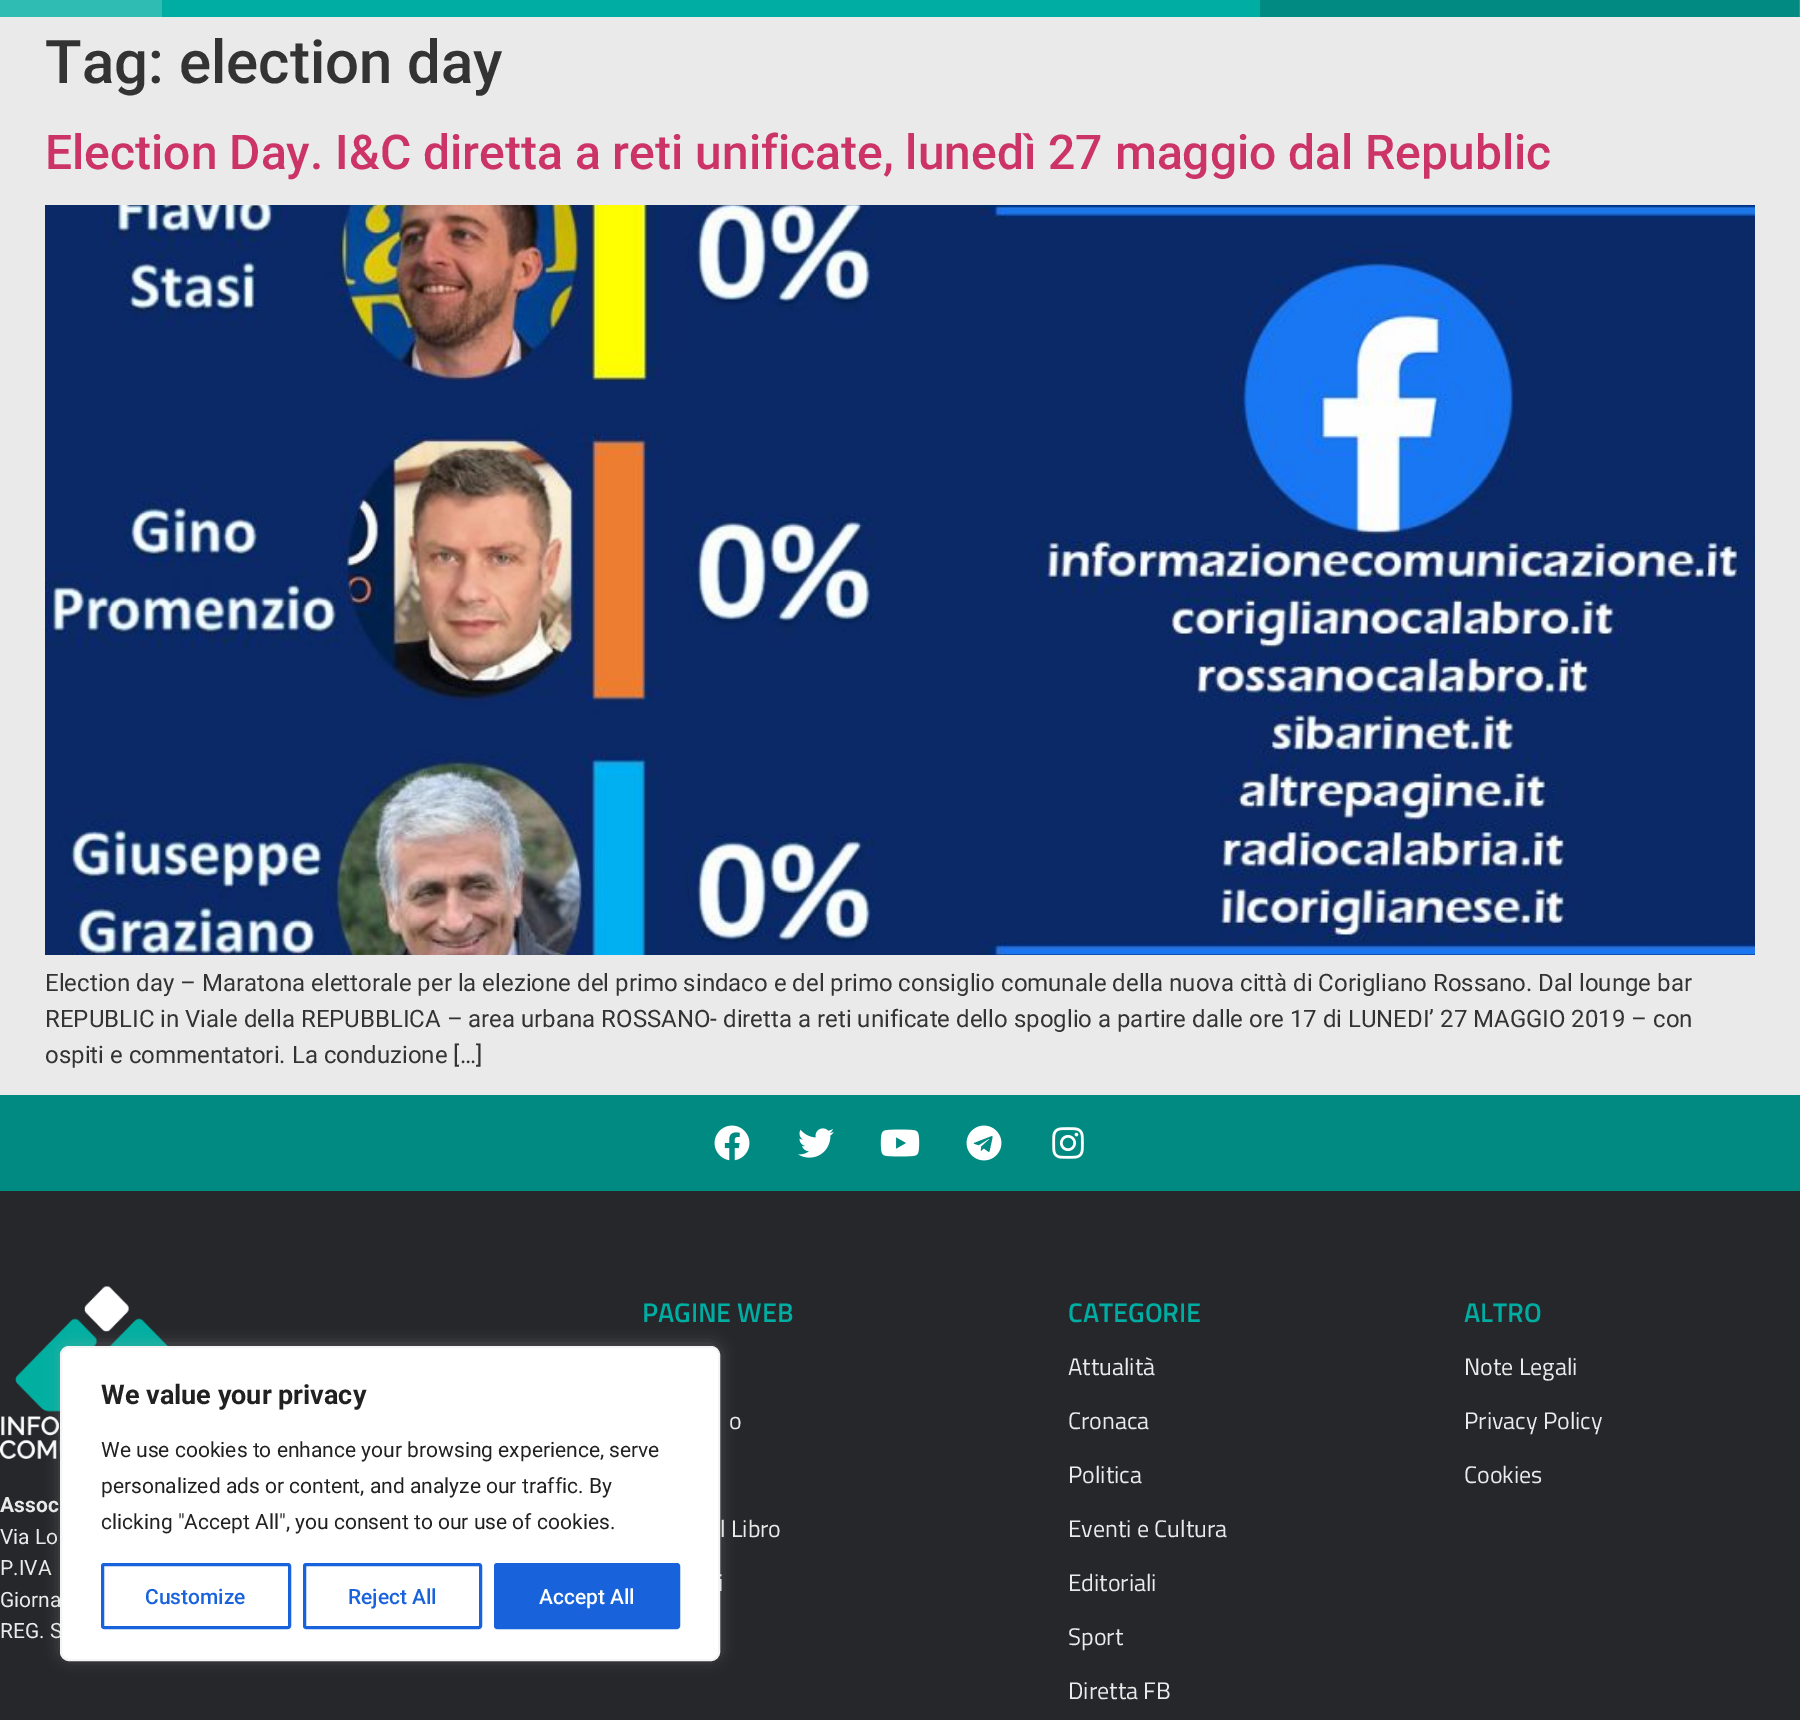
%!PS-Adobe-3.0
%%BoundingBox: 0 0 1800 1720
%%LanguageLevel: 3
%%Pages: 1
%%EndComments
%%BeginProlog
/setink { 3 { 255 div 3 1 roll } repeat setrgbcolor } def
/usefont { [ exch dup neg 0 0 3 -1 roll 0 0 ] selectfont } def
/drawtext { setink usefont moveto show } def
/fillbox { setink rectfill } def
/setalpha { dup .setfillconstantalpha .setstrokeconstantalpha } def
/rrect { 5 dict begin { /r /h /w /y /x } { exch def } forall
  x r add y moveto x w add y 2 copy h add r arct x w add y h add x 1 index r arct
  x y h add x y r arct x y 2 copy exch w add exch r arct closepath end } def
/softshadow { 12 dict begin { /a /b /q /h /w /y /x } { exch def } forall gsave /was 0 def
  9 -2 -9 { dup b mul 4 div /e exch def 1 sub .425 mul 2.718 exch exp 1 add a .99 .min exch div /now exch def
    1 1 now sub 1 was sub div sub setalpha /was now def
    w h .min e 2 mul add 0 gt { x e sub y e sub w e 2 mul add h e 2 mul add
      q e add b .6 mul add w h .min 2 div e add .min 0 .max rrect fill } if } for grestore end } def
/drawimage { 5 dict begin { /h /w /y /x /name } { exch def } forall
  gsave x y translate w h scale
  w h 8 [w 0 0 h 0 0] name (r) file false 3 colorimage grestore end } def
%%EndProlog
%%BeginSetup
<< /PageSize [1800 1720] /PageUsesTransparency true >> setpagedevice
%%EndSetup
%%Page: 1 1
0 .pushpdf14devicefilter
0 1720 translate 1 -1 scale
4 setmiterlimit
0 0 1800 1720 234 234 234 fillbox
162 0 1638 17 0 173 162 fillbox
0 0 162 17 46 188 179 fillbox
1260 0 539 17 0 138 129 fillbox
(Tag: election day) 45 83 /Roboto-Medium 60 51 51 51 drawtext
(Election Day. I&C diretta a reti unificate, lunedì 27 maggio dal Republic) 45 169 /Roboto-Medium 48 204 51 102 drawtext
(assets/img1.rgb) 45 205 1710 750 drawimage
(Election day – Maratona elettorale per la elezione del primo sindaco e del primo consiglio comunale della nuova città di Corigliano Rossano. Dal lounge bar) 45 991 /Roboto-Regular 24 51 51 51 drawtext
(REPUBLIC in Viale della REPUBBLICA – area urbana ROSSANO- diretta a reti unificate dello spoglio a partire dalle ore 17 di LUNEDI’ 27 MAGGIO 2019 – con) 45 1027 /Roboto-Regular 24 51 51 51 drawtext
(ospiti e commentatori. La conduzione […]) 45 1063 /Roboto-Regular 24 51 51 51 drawtext
0 1095 1800 96 0 138 129 fillbox
(assets/img2.rgb) 714 1125 36 36 drawimage
(assets/img3.rgb) 798 1128 36 30 drawimage
(assets/img4.rgb) 880 1129 40 28 drawimage
(assets/img5.rgb) 966 1125 36 36 drawimage
(assets/img6.rgb) 1052 1127 32 32 drawimage
0 1191 1800 529 38 39 43 fillbox
(PAGINE WEB) 642 1322 /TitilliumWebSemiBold-SemiBold 27 0 173 162 drawtext
(o) 729 1429 /TitilliumWeb-Regular 24 234 234 234 drawtext
(l Libro) 720 1537 /TitilliumWeb-Regular 24 234 234 234 drawtext
(i) 718 1591 /TitilliumWeb-Regular 24 234 234 234 drawtext
(CATEGORIE) 1068 1322 /TitilliumWebSemiBold-SemiBold 27 0 173 162 drawtext
(Attualità) 1068 1375 /TitilliumWeb-Regular 24 234 234 234 drawtext
(Cronaca) 1068 1429 /TitilliumWeb-Regular 24 234 234 234 drawtext
(Politica) 1068 1483 /TitilliumWeb-Regular 24 234 234 234 drawtext
(Eventi e Cultura) 1068 1537 /TitilliumWeb-Regular 24 234 234 234 drawtext
(Editoriali) 1068 1591 /TitilliumWeb-Regular 24 234 234 234 drawtext
(Sport) 1068 1645 /TitilliumWeb-Regular 24 234 234 234 drawtext
(Diretta FB) 1068 1699 /TitilliumWeb-Regular 24 234 234 234 drawtext
(ALTRO) 1464 1322 /TitilliumWebSemiBold-SemiBold 27 0 173 162 drawtext
(Note Legali) 1464 1375 /TitilliumWeb-Regular 24 234 234 234 drawtext
(Privacy Policy) 1464 1429 /TitilliumWeb-Regular 24 234 234 234 drawtext
(Cookies) 1464 1483 /TitilliumWeb-Regular 24 234 234 234 drawtext
(assets/img7.rgb) 0 1286 168 173 drawimage
(Assoc) 0 1512 /Roboto-Bold 21 234 234 234 drawtext
(Via Lo) 0 1544 /Roboto-Regular 21 234 234 234 drawtext
(P.IVA) 0 1575 /Roboto-Regular 21 234 234 234 drawtext
(Giorna) 0 1607 /Roboto-Regular 21 234 234 234 drawtext
(REG. S) 0 1638 /Roboto-Regular 21 234 234 234 drawtext
172 171 171 setink
60 1344 660 315 9 7.5 0.3 softshadow
255 255 255 setink
61 1347 658 313 8 rrect gsave fill grestore
244 244 244 setink
2 setlinewidth
stroke
(We value your privacy) 101 1404 /Roboto-Bold 27 33 33 33 drawtext
(We use cookies to enhance your browsing experience, serve) 101 1457 /Roboto-Regular 21 33 33 33 drawtext
(personalized ads or content, and analyze our traffic. By) 101 1493 /Roboto-Regular 21 33 33 33 drawtext
(clicking "Accept All", you consent to our use of cookies.) 101 1529 /Roboto-Regular 21 33 33 33 drawtext
24 99 220 setink
3 setlinewidth
102.5 1564.5 187 63 1.5 rrect stroke
(Customize) 145 1604 /Roboto-Medium 21 24 99 220 drawtext
304.5 1564.5 176 63 1.5 rrect stroke
(Reject All) 348 1604 /Roboto-Medium 21 24 99 220 drawtext
495.5 1564.5 183 63 1.5 rrect gsave fill grestore
stroke
(Accept All) 539 1604 /Roboto-Medium 21 255 255 255 drawtext
.poppdf14devicefilter showpage
%%EOF
